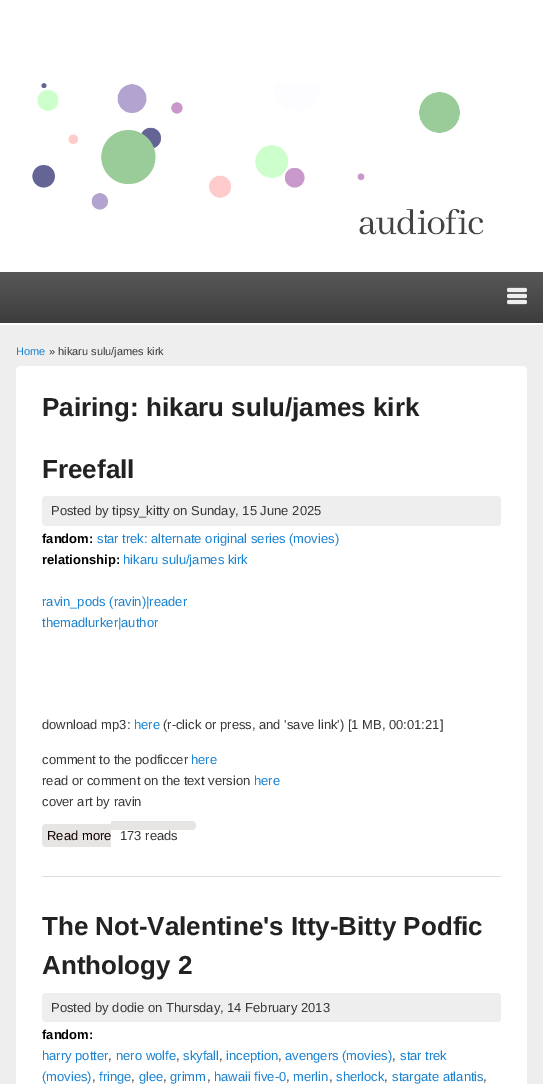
%!PS-Adobe-3.0
%%BoundingBox: 0 0 543 1084
%%LanguageLevel: 3
%%Pages: 1
%%EndComments
%%BeginProlog
/setink { 3 { 255 div 3 1 roll } repeat setrgbcolor } def
/usefont { [ exch dup neg 0 0 3 -1 roll 0 0 ] selectfont } def
/drawtext { setink usefont moveto show } def
/fillbox { setink rectfill } def
/rrect { 5 dict begin { /r /h /w /y /x } { exch def } forall
  x r add y moveto x w add y 2 copy h add r arct x w add y h add x 1 index r arct
  x y h add x y r arct x y 2 copy exch w add exch r arct closepath end } def
/drawimage { 5 dict begin { /h /w /y /x /name } { exch def } forall
  gsave x y translate w h scale
  w h 8 [w 0 0 h 0 0] name (r) file false 3 colorimage grestore end } def
%%EndProlog
%%BeginSetup
<< /PageSize [543 1084] >> setpagedevice
%%EndSetup
%%Page: 1 1
0 1084 translate 1 -1 scale
4 setmiterlimit
0 0 543 1084 238 238 238 fillbox
0 0 543 325 255 255 255 fillbox
(assets/img1.rgb) 32 83 452 152 drawimage
gsave 0 272 moveto 543 272 lineto 543 323 lineto 0 323 lineto closepath clip newpath
<< /ShadingType 2 /ColorSpace /DeviceRGB /Coords [272 272 272 323] /Extend [true true] /Function << /FunctionType 2 /Domain [0 1] /C0 [0.345 0.345 0.345] /C1 [0.239 0.239 0.239] /N 1 >> >> shfill grestore
(assets/img2.rgb) 507 287 20 18 drawimage
(Home) 16 355 /LiberationSans-Regular 11 25 130 209 drawtext
(» hikaru sulu/james kirk) 49 355 /LiberationSans-Regular 11 55 55 55 drawtext
255 255 255 setink
16 366 511 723 5 rrect fill
(Pairing: hikaru sulu/james kirk) 42 416 /LiberationSans-Bold 26 34 34 34 drawtext
42 876 459 1 221 221 221 fillbox
(Freefall) 42 478 /LiberationSans-Bold 26 34 34 34 drawtext
238 238 238 setink
42 496 459 30 4 rrect fill
(Posted by tipsy_kitty on Sunday, 15 June 2025) 51 515 /LiberationSans-Regular 13 55 55 55 drawtext
(fandom:) 42 543 /LiberationSans-Bold 13 0 0 0 drawtext
(star trek: alternate original series \(movies\)) 97 543 /LiberationSans-Regular 13 25 130 209 drawtext
(relationship:) 42 564 /LiberationSans-Bold 13 0 0 0 drawtext
(hikaru sulu/james kirk) 123 564 /LiberationSans-Regular 13 25 130 209 drawtext
(ravin_pods \(ravin\)|reader) 42 606 /LiberationSans-Regular 13 25 130 209 drawtext
(themadlurker|author) 42 627 /LiberationSans-Regular 13 25 130 209 drawtext
(download mp3:) 42 729 /LiberationSans-Regular 13 55 55 55 drawtext
(here) 134 729 /LiberationSans-Regular 13 25 130 209 drawtext
(\(r-click or press, and 'save link'\) [1 MB, 00:01:21]) 163 729 /LiberationSans-Regular 13 55 55 55 drawtext
(comment to the podficcer) 42 764 /LiberationSans-Regular 13 55 55 55 drawtext
(here) 191 764 /LiberationSans-Regular 13 25 130 209 drawtext
(read or comment on the text version) 42 785 /LiberationSans-Regular 13 55 55 55 drawtext
(here) 254 785 /LiberationSans-Regular 13 25 130 209 drawtext
(cover art by ravin) 42 806 /LiberationSans-Regular 13 55 55 55 drawtext
231 229 227 setink
46 824 moveto 111 824 lineto 111 847 lineto 46 847 lineto 44 847 42 845 42 843 curveto 42 828 lineto 42 826 44 824 46 824 curveto closepath fill
(Read more) 47 840 /LiberationSans-Regular 13 16 1 0 drawtext
231 229 227 setink
111 821 moveto 192 821 lineto 194 821 196 823 196 825 curveto 196 826 lineto 196 828 194 830 192 830 curveto 111 830 lineto closepath fill
(173 reads) 120 840 /LiberationSans-Regular 13 55 55 55 drawtext
(The Not-Valentine's Itty-Bitty Podfic) 42 935 /LiberationSans-Bold 26 34 34 34 drawtext
(Anthology 2) 42 974 /LiberationSans-Bold 26 34 34 34 drawtext
238 238 238 setink
42 993 459 29 4 rrect fill
(Posted by dodie on Thursday, 14 February 2013) 51 1012 /LiberationSans-Regular 13 55 55 55 drawtext
(fandom:) 42 1039 /LiberationSans-Bold 13 0 0 0 drawtext
(harry potter) 42 1060 /LiberationSans-Regular 13 25 130 209 drawtext
(,) 108 1060 /LiberationSans-Regular 13 55 55 55 drawtext
(nero wolfe) 116 1060 /LiberationSans-Regular 13 25 130 209 drawtext
(,) 176 1060 /LiberationSans-Regular 13 55 55 55 drawtext
(skyfall) 183 1060 /LiberationSans-Regular 13 25 130 209 drawtext
(,) 219 1060 /LiberationSans-Regular 13 55 55 55 drawtext
(inception) 226 1060 /LiberationSans-Regular 13 25 130 209 drawtext
(,) 278 1060 /LiberationSans-Regular 13 55 55 55 drawtext
(avengers \(movies\)) 285 1060 /LiberationSans-Regular 13 25 130 209 drawtext
(,) 392 1060 /LiberationSans-Regular 13 55 55 55 drawtext
(star trek) 400 1060 /LiberationSans-Regular 13 25 130 209 drawtext
(\(movies\)) 42 1081 /LiberationSans-Regular 13 25 130 209 drawtext
(,) 92 1081 /LiberationSans-Regular 13 55 55 55 drawtext
(fringe) 99 1081 /LiberationSans-Regular 13 25 130 209 drawtext
(,) 131 1081 /LiberationSans-Regular 13 55 55 55 drawtext
(glee) 139 1081 /LiberationSans-Regular 13 25 130 209 drawtext
(,) 163 1081 /LiberationSans-Regular 13 55 55 55 drawtext
(grimm) 170 1081 /LiberationSans-Regular 13 25 130 209 drawtext
(,) 207 1081 /LiberationSans-Regular 13 55 55 55 drawtext
(hawaii five-0) 214 1081 /LiberationSans-Regular 13 25 130 209 drawtext
(,) 286 1081 /LiberationSans-Regular 13 55 55 55 drawtext
(merlin) 293 1081 /LiberationSans-Regular 13 25 130 209 drawtext
(,) 329 1081 /LiberationSans-Regular 13 55 55 55 drawtext
(sherlock) 336 1081 /LiberationSans-Regular 13 25 130 209 drawtext
(,) 384 1081 /LiberationSans-Regular 13 55 55 55 drawtext
(stargate atlantis) 392 1081 /LiberationSans-Regular 13 25 130 209 drawtext
(,) 483 1081 /LiberationSans-Regular 13 55 55 55 drawtext
showpage
%%EOF
